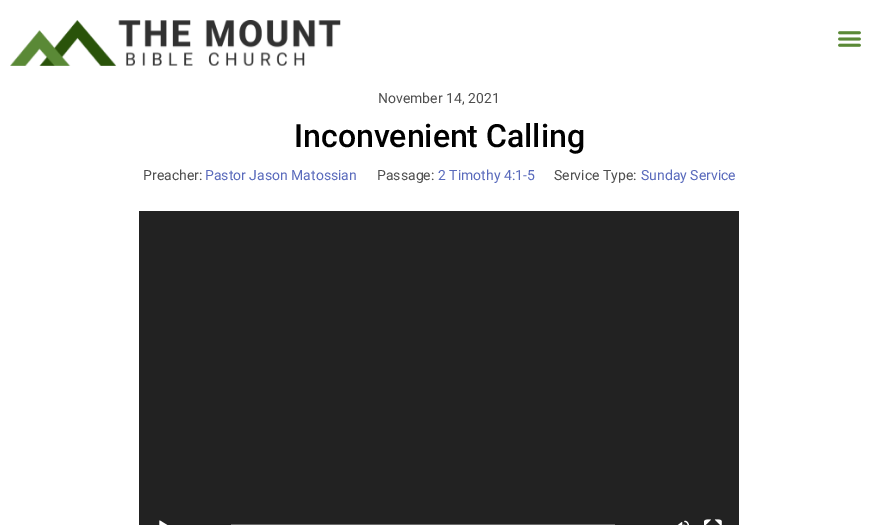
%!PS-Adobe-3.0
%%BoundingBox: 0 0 878 525
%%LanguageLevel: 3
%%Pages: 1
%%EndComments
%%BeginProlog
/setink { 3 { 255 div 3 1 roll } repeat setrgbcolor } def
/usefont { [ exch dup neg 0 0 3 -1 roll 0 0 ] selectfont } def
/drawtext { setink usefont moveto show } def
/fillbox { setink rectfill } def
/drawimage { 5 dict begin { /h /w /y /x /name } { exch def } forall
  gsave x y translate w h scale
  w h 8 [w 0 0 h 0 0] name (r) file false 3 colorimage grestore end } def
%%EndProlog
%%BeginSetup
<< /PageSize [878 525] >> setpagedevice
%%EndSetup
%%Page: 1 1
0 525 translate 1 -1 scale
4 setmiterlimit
0 0 878 525 255 255 255 fillbox
(assets/img1.rgb) 10 20 331 46 drawimage
(assets/img2.rgb) 838 31 23 16 drawimage
(November 14, 2021) 378 103 /Roboto-Regular 14 78 78 78 drawtext
(Inconvenient Calling) 294 147 /Roboto-Medium 32 0 0 0 drawtext
(Preacher:) 143 180 /Roboto-Regular 14 78 78 78 drawtext
(Pastor Jason Matossian) 205 180 /Roboto-Regular 14 89 106 188 drawtext
(Passage:) 377 180 /Roboto-Regular 14 78 78 78 drawtext
(2 Timothy 4:1-5) 438 180 /Roboto-Regular 14 89 106 188 drawtext
(Service Type:) 554 180 /Roboto-Regular 14 78 78 78 drawtext
(Sunday Service) 641 180 /Roboto-Regular 14 89 106 188 drawtext
139 211 600 314 34 34 34 fillbox
(assets/img3.rgb) 159 520 9 5 drawimage
231 524 384 1 107 107 107 fillbox
(assets/img4.rgb) 677 520 12 5 drawimage
(assets/img5.rgb) 704 519 18 6 drawimage
showpage
%%EOF
